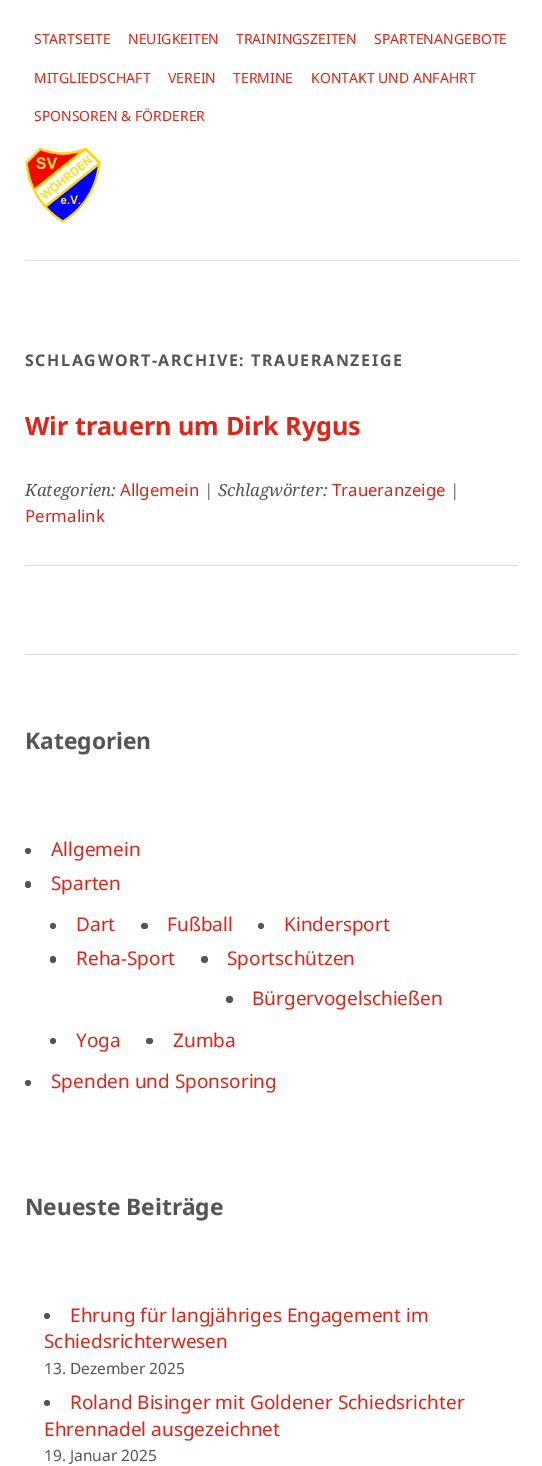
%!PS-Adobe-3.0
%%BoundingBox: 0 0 542 1466
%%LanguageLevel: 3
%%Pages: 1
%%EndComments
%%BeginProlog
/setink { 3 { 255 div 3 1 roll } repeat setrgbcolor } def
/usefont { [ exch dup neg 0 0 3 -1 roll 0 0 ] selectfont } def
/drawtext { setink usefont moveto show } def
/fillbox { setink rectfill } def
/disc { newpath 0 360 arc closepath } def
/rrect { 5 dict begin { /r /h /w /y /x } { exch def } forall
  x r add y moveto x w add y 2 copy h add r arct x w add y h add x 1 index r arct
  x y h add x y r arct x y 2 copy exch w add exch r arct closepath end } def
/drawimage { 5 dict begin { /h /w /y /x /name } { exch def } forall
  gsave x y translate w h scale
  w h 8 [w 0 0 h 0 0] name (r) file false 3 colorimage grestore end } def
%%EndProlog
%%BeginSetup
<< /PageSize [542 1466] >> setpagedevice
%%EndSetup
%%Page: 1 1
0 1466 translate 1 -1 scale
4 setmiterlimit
0 0 542 1466 255 255 255 fillbox
(STARTSEITE) 34 44 /NotoSans-Regular 14 225 36 24 drawtext
(NEUIGKEITEN) 128 44 /NotoSans-Regular 14 225 36 24 drawtext
(TRAININGSZEITEN) 236 44 /NotoSans-Regular 14 225 36 24 drawtext
(SPARTENANGEBOTE) 374 44 /NotoSans-Regular 14 225 36 24 drawtext
(MITGLIEDSCHAFT) 34 83 /NotoSans-Regular 14 225 36 24 drawtext
(VEREIN) 168 83 /NotoSans-Regular 14 225 36 24 drawtext
(TERMINE) 233 83 /NotoSans-Regular 14 225 36 24 drawtext
(KONTAKT UND ANFAHRT) 311 83 /NotoSans-Regular 14 225 36 24 drawtext
(SPONSOREN & FÖRDERER) 34 121 /NotoSans-Regular 14 225 36 24 drawtext
(assets/img1.rgb) 25 147 76 76 drawimage
25 260 493 1 221 221 221 fillbox
/NotoSans-Bold 16 usefont
85 85 85 setink
25 366 moveto 1.6 0 (SCHLAGWORT-ARCHIVE: TRAUERANZEIGE) ashow
25 565 493 1 221 221 221 fillbox
(Wir trauern um Dirk Rygus) 25 435 /NotoSans-Bold 25.25 225 36 24 drawtext
(Kategorien:) 25 496 /NotoSerif-Italic 16.75 85 85 85 drawtext
(Allgemein) 120 496 /NotoSans-Regular 16.75 225 36 24 drawtext
(| Schlagwörter:) 204 496 /NotoSerif-Italic 16.75 85 85 85 drawtext
(Traueranzeige) 332 496 /NotoSans-Regular 16.75 225 36 24 drawtext
(|) 450 496 /NotoSerif-Italic 16.75 85 85 85 drawtext
(Permalink) 25 522 /NotoSans-Regular 16.75 225 36 24 drawtext
25 654 493 1 221 221 221 fillbox
(Kategorien) 25 749 /NotoSans-Bold 22.75 85 85 85 drawtext
28 851 3 disc fill
(Allgemein) 51 856 /NotoSans-Regular 19 225 36 24 drawtext
85 85 85 setink
25 881 6 7 3 rrect fill
(Sparten) 51 890 /NotoSans-Regular 19 225 36 24 drawtext
85 85 85 setink
53 926 3 disc fill
(Dart) 76 931 /NotoSans-Regular 19 225 36 24 drawtext
85 85 85 setink
141 923 7 6 3 rrect fill
(Fußball) 167 931 /NotoSans-Regular 19 225 36 24 drawtext
85 85 85 setink
261 926 3 disc fill
(Kindersport) 284 931 /NotoSans-Regular 19 225 36 24 drawtext
85 85 85 setink
50 956 6 7 3 rrect fill
(Reha-Sport) 76 965 /NotoSans-Regular 19 225 36 24 drawtext
85 85 85 setink
204.5 959.5 3.5 disc fill
(Sportschützen) 227 965 /NotoSans-Regular 19 225 36 24 drawtext
85 85 85 setink
229.5 999.5 3.5 disc fill
(Bürgervogelschießen) 252 1005 /NotoSans-Regular 19 225 36 24 drawtext
85 85 85 setink
53 1041 3 disc fill
(Yoga) 76 1047 /NotoSans-Regular 19 225 36 24 drawtext
85 85 85 setink
146 1038 7 6 3 rrect fill
(Zumba) 173 1047 /NotoSans-Regular 19 225 36 24 drawtext
85 85 85 setink
28 1083 3 disc fill
(Spenden und Sponsoring) 51 1088 /NotoSans-Regular 19 225 36 24 drawtext
(Neueste Beiträge) 25 1215 /NotoSans-Bold 22.75 85 85 85 drawtext
47 1316 3 disc fill
(Ehrung für langjähriges Engagement im) 70 1322 /NotoSans-Regular 19 225 36 24 drawtext
(Schiedsrichterwesen) 44 1348 /NotoSans-Regular 19 225 36 24 drawtext
(13. Dezember 2025) 44 1374 /NotoSans-Regular 15.5 85 85 85 drawtext
47 1403 3 disc fill
(Roland Bisinger mit Goldener Schiedsrichter) 70 1409 /NotoSans-Regular 19 225 36 24 drawtext
(Ehrennadel ausgezeichnet) 44 1436 /NotoSans-Regular 19 225 36 24 drawtext
(19. Januar 2025) 44 1461 /NotoSans-Regular 15.5 85 85 85 drawtext
showpage
%%EOF
